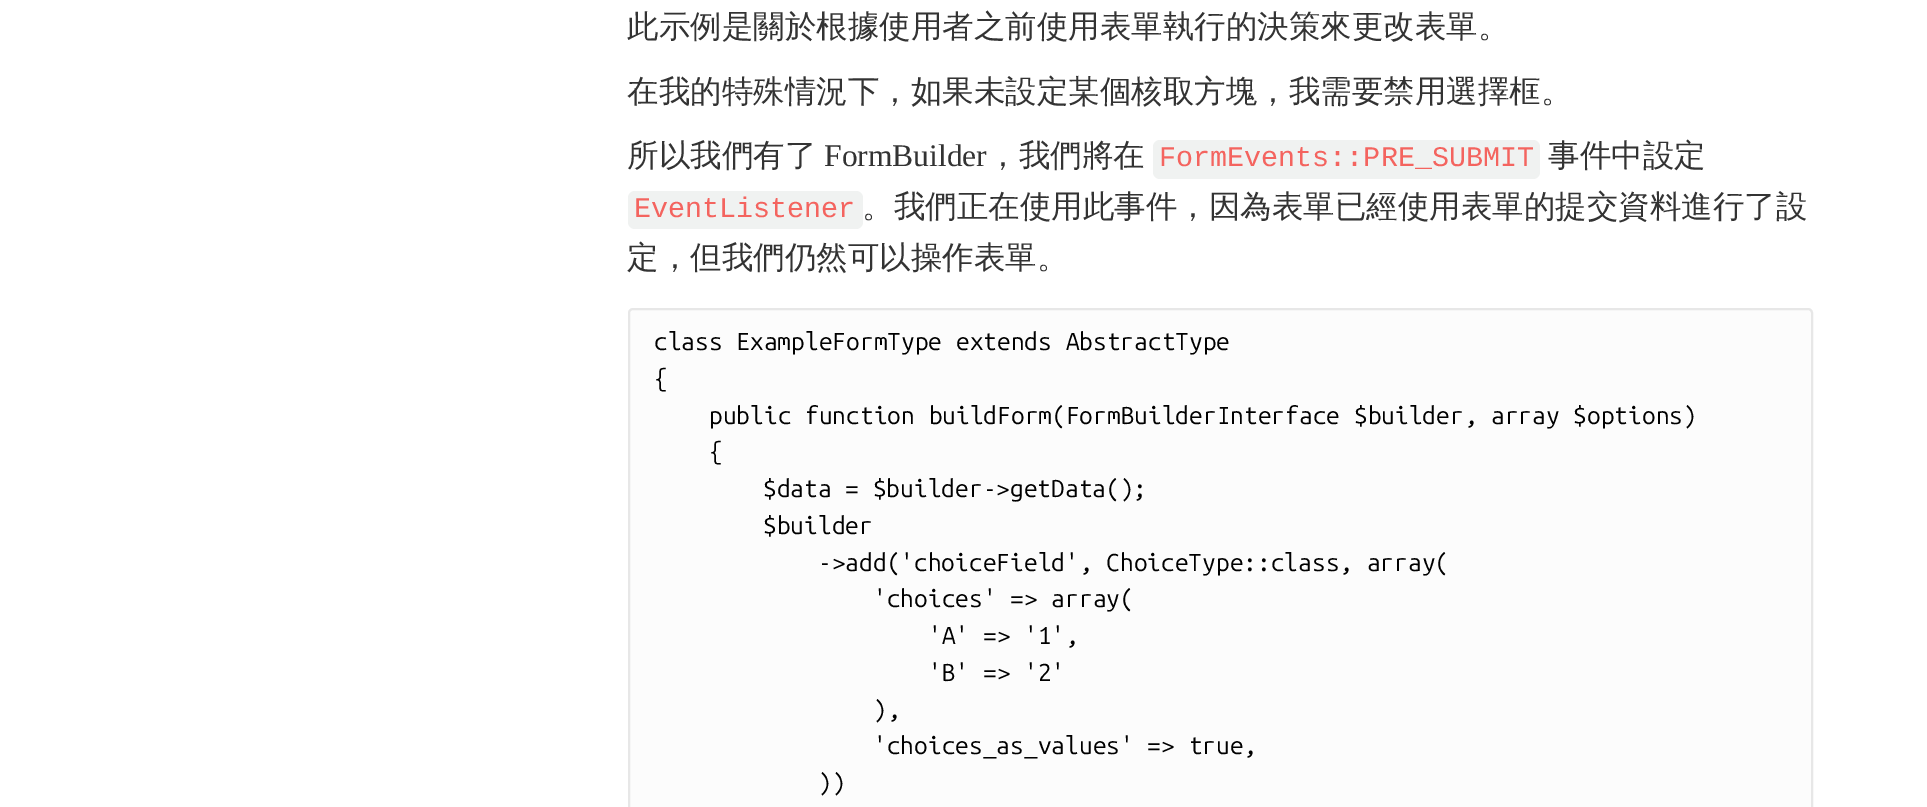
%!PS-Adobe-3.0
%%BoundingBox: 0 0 1927 807
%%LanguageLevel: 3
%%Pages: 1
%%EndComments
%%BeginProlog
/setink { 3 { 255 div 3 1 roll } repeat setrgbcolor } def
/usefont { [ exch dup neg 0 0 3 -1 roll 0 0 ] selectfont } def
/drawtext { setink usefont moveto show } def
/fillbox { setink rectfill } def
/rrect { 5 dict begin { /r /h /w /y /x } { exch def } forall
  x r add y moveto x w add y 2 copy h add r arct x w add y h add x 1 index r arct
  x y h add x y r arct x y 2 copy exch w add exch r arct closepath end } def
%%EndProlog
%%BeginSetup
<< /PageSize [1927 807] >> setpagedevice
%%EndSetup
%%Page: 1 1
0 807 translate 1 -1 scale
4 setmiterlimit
0 0 1927 807 255 255 255 fillbox
(此示例是關於根據使用者之前使用表單執行的決策來更改表單。) 627 37 /WenQuanYiZenHei-Medium 31.5 51 51 51 drawtext
(在我的特殊情況下，如果未設定某個核取方塊，我需要禁用選擇框。) 627 102 /WenQuanYiZenHei-Medium 31.5 51 51 51 drawtext
(所以我們有了) 627 166 /WenQuanYiZenHei-Medium 31.5 51 51 51 drawtext
(FormBuilder) 824 166 /LiberationSerif-Regular 31.5 51 51 51 drawtext
(，我們將在) 987 166 /WenQuanYiZenHei-Medium 31.5 51 51 51 drawtext
240 242 241 setink
1153 140 387 39 7 rrect fill
(FormEvents::PRE_SUBMIT) 1159 166 /LiberationMono-Regular 28.4 244 100 95 drawtext
(事件中設定) 1548 166 /WenQuanYiZenHei-Medium 31.5 51 51 51 drawtext
240 242 241 setink
628 191 235 38 7 rrect fill
(EventListener) 634 217 /LiberationMono-Regular 28.4 244 100 95 drawtext
(。我們正在使用此事件，因為表單已經使用表單的提交資料進行了設) 862 217 /WenQuanYiZenHei-Medium 31.5 51 51 51 drawtext
(定，但我們仍然可以操作表單。) 627 268 /WenQuanYiZenHei-Medium 31.5 51 51 51 drawtext
252 252 252 setink
629 309 1183 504 4 rrect gsave fill grestore
231 231 231 setink
2 setlinewidth
stroke
(class ExampleFormType extends AbstractType) 654 350 /UbuntuMono-Regular 24.5 0 0 0 drawtext
({) 654 387 /UbuntuMono-Regular 24.5 0 0 0 drawtext
(public function buildForm\(FormBuilderInterface $builder, array $options\)) 709 424 /UbuntuMono-Regular 24.5 0 0 0 drawtext
({) 709 460 /UbuntuMono-Regular 24.5 0 0 0 drawtext
($data = $builder->getData\(\);) 763 497 /UbuntuMono-Regular 24.5 0 0 0 drawtext
($builder) 763 534 /UbuntuMono-Regular 24.5 0 0 0 drawtext
(->add\('choiceField', ChoiceType::class, array\() 818 571 /UbuntuMono-Regular 24.5 0 0 0 drawtext
('choices' => array\() 873 607 /UbuntuMono-Regular 24.5 0 0 0 drawtext
('A' => '1',) 928 644 /UbuntuMono-Regular 24.5 0 0 0 drawtext
('B' => '2') 928 681 /UbuntuMono-Regular 24.5 0 0 0 drawtext
(\),) 873 718 /UbuntuMono-Regular 24.5 0 0 0 drawtext
('choices_as_values' => true,) 873 754 /UbuntuMono-Regular 24.5 0 0 0 drawtext
(\)\)) 818 791 /UbuntuMono-Regular 24.5 0 0 0 drawtext
showpage
%%EOF
